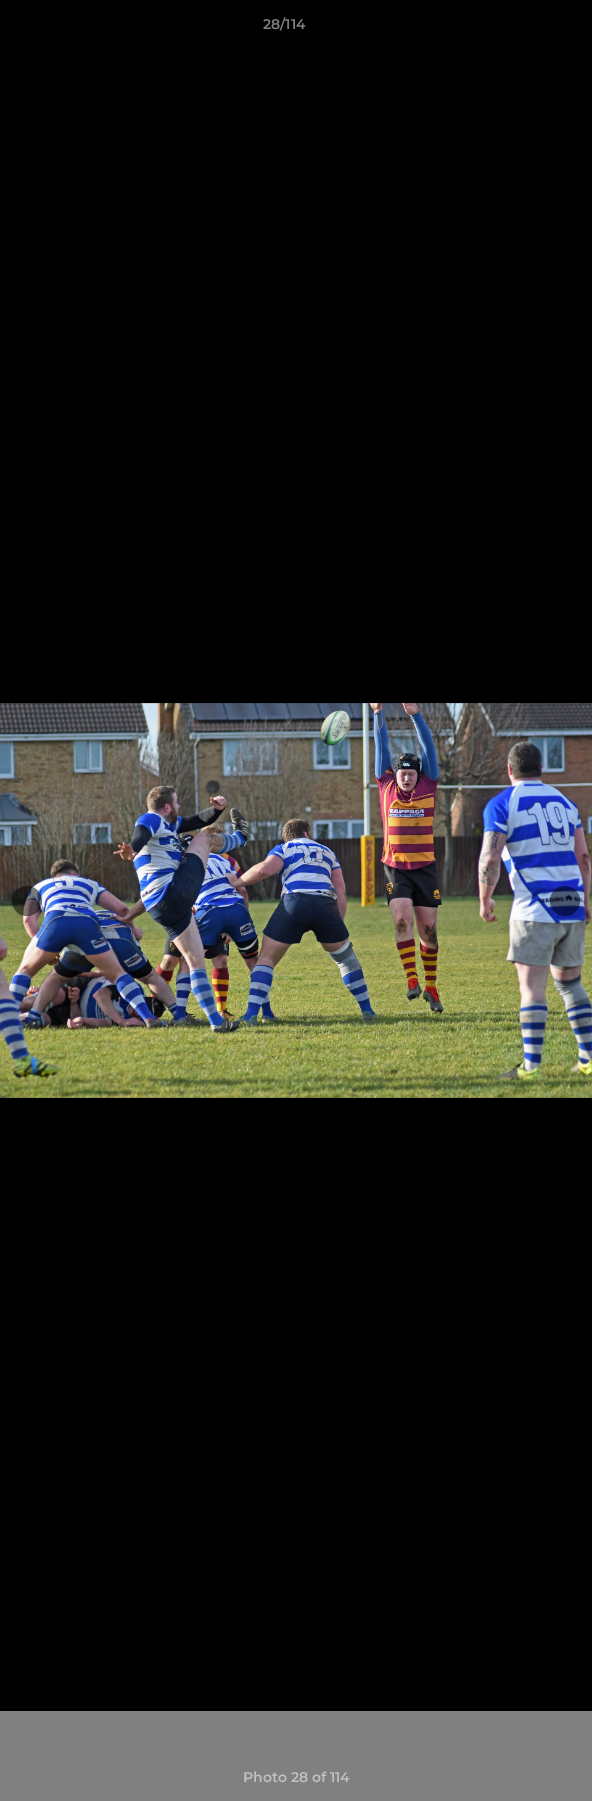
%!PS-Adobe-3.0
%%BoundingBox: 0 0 592 1801
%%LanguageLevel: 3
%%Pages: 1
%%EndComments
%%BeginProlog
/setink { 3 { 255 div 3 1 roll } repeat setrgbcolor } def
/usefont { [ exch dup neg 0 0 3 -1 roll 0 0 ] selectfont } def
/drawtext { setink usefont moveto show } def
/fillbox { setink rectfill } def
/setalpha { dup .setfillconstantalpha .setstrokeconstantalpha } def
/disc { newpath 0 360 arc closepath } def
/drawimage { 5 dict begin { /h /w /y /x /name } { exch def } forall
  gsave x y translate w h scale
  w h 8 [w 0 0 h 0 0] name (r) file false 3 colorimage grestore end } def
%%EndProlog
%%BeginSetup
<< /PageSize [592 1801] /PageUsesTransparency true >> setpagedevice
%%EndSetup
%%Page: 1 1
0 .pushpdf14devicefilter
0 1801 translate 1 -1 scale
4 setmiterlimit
0 0 592 1801 0 0 0 fillbox
0 1711 592 90 128 128 128 fillbox
(28/114) 263 29 /Montserrat-SemiBold 14 128 128 128 drawtext
(assets/img1.rgb) 0 703 592 395 drawimage
0.5 setalpha
0 0 0 setink
27 901 15 disc fill
565 901 15 disc fill
1 setalpha
(Photo 28 of 114) 243 1782 /Montserrat-SemiBold 14 192 192 192 drawtext
.poppdf14devicefilter showpage
%%EOF
